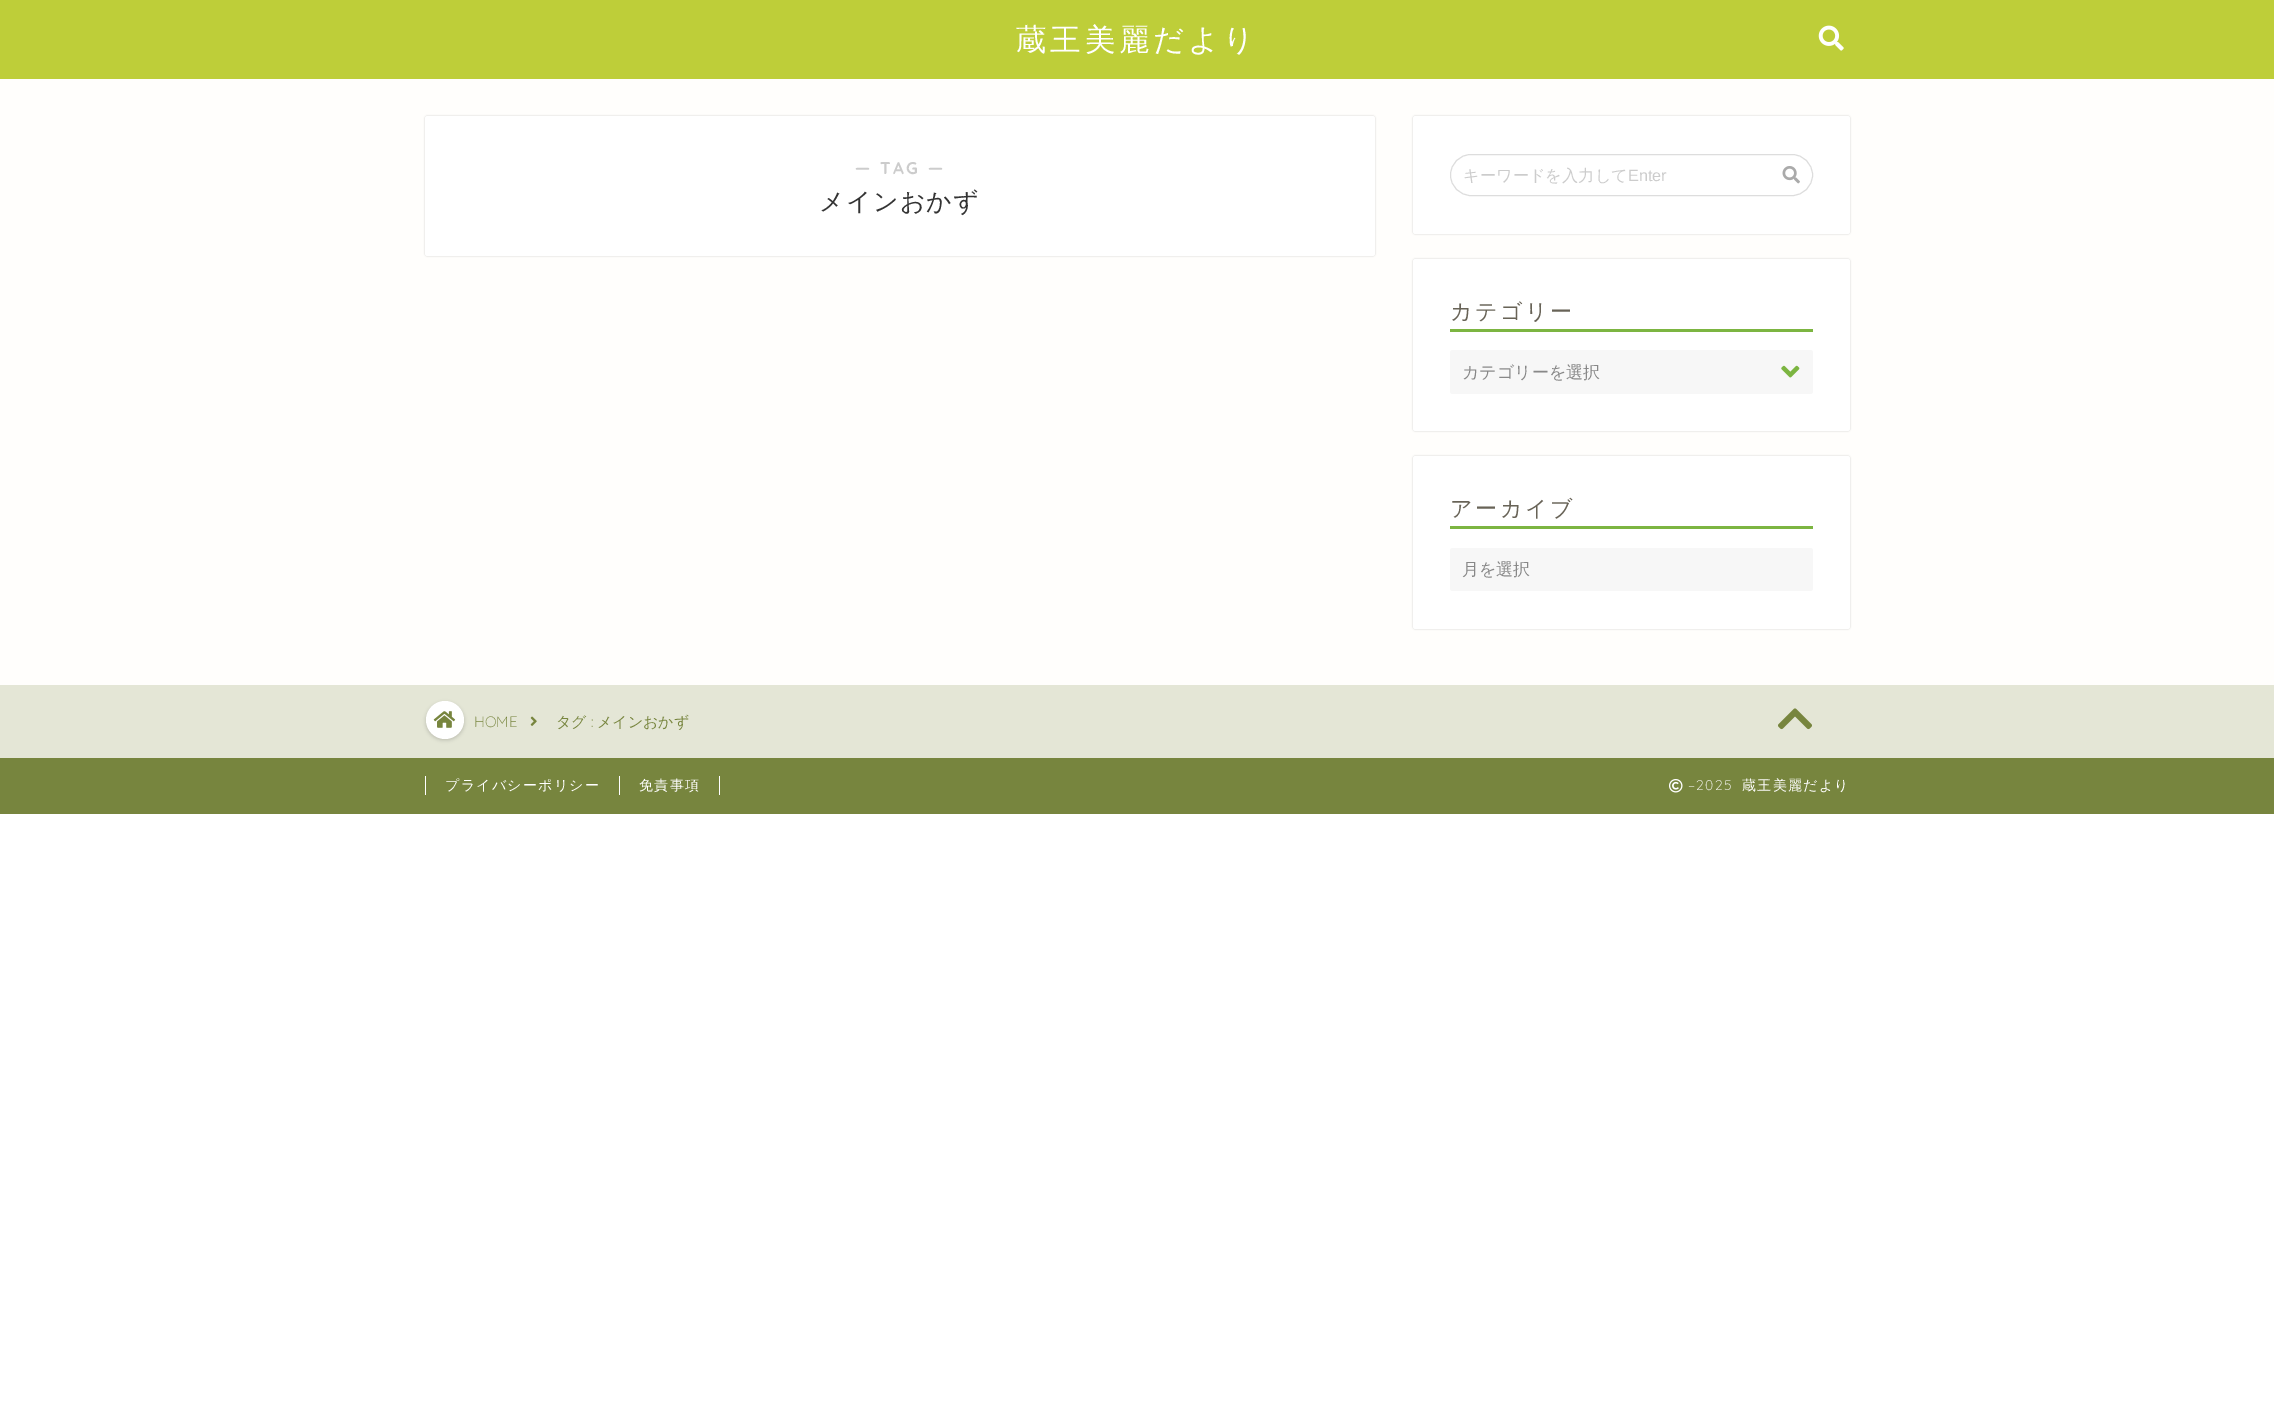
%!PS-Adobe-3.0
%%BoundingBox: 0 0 2274 1421
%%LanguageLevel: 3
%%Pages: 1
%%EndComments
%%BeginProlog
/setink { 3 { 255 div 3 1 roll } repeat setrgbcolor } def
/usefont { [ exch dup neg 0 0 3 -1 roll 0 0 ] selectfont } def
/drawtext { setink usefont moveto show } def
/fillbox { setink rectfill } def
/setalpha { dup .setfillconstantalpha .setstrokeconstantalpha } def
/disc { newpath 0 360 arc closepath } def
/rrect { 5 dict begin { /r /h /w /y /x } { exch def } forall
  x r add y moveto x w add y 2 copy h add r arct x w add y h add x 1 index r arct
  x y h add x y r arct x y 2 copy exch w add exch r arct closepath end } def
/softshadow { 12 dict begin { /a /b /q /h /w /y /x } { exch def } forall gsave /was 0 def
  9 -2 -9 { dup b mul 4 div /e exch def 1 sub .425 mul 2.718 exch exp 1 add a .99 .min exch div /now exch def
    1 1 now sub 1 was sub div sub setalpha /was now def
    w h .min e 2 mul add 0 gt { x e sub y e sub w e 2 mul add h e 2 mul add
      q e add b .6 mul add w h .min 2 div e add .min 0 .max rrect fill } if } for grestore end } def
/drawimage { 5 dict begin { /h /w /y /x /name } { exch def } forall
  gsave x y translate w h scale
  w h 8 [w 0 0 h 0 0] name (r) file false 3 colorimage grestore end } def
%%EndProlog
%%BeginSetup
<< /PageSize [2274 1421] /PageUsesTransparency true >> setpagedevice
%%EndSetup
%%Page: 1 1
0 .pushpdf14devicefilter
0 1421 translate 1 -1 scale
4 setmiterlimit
0 0 2274 1421 255 255 255 fillbox
0 79 2274 606 255 254 252 fillbox
0 0 2274 79 190 206 57 fillbox
/WenQuanYiZenHei-Medium 30.5 usefont
255 255 255 setink
1016 50 moveto 3.75 0 (蔵王美麗だより) ashow
(assets/img1.rgb) 1818 25 26 26 drawimage
0 0 0 setink
425 116 950 140 2.5 1 0.18 softshadow
255 255 255 setink
425 116 950 140 2.5 rrect fill
/Quicksand-Bold 17 usefont
204 204 204 setink
855 174 moveto 2.5 0 (― TAG ―) ashow
/WenQuanYiZenHei-Medium 25 usefont
51 51 51 setink
819 210 moveto 1.25 0 (メインおかず) ashow
0 0 0 setink
1413 116 437 118 2.5 1 0.18 softshadow
255 255 255 setink
1413 116 437 118 2.5 rrect fill
221 221 221 setink
1450.5 154.5 362 41 20.5 rrect stroke
(キーワードを入力して) 1463 181 /WenQuanYiZenHei-Medium 16.25 204 204 204 drawtext
(Enter) 1628 181 /LiberationSans-Regular 16.25 204 204 204 drawtext
(assets/img2.rgb) 1782 166 18 18 drawimage
0 0 0 setink
1413 259 437 172 2.5 1 0.18 softshadow
255 255 255 setink
1413 259 437 172 2.5 rrect fill
1450 329 363 3 124 181 65 fillbox
/WenQuanYiZenHei-Medium 22 usefont
104 99 87 setink
1450 319 moveto 2.5 0 (カテゴリー) ashow
247 247 247 setink
1450 350 363 44 2.5 rrect fill
(カテゴリーを選択) 1462 378 /WenQuanYiZenHei-Medium 17 136 136 136 drawtext
(assets/img3.rgb) 1781 365 19 13 drawimage
0 0 0 setink
1413 456 437 173 2.5 1 0.18 softshadow
255 255 255 setink
1413 456 437 173 2.5 rrect fill
1450 526 363 3 124 181 65 fillbox
/WenQuanYiZenHei-Medium 22 usefont
104 99 87 setink
1450 516 moveto 2.5 0 (アーカイブ) ashow
247 247 247 setink
1450 548 363 43 2.5 rrect fill
(月を選択) 1462 575 /WenQuanYiZenHei-Medium 17 136 136 136 drawtext
0 685 2274 73 228 230 214 fillbox
0 0 0 setink
426 703 38 37 18.5 2 0.18 softshadow
255 255 255 setink
445 720 19 disc fill
(assets/img4.rgb) 433 711 23 17 drawimage
(HOME) 474 727 /Quicksand-Light 15 119 133 62 drawtext
(assets/img5.rgb) 530 716 7 10 drawimage
(タグ) 556 727 /WenQuanYiZenHei-Medium 15 119 133 62 drawtext
(:) 591 727 /Quicksand-Light 15 119 133 62 drawtext
(メインおかず) 597 727 /WenQuanYiZenHei-Medium 15 119 133 62 drawtext
(assets/img6.rgb) 1778 708 34 22 drawimage
0 758 2274 56 119 133 62 fillbox
619 776 1 19 255 255 255 fillbox
425 776 1 19 255 255 255 fillbox
/WenQuanYiZenHei-Medium 14 usefont
445 790 moveto 1.25 0 (プライバシーポリシー) ashow
719 776 1 19 255 255 255 fillbox
639 790 moveto 1.25 0 (免責事項) ashow
(assets/img7.rgb) 1669 779 14 14 drawimage
/Quicksand-Light 14 usefont
1688 790 moveto 1.25 0 (–2025) ashow
/WenQuanYiZenHei-Medium 14 usefont
1742 790 moveto 1.25 0 (蔵王美麗だより) ashow
.poppdf14devicefilter showpage
%%EOF
